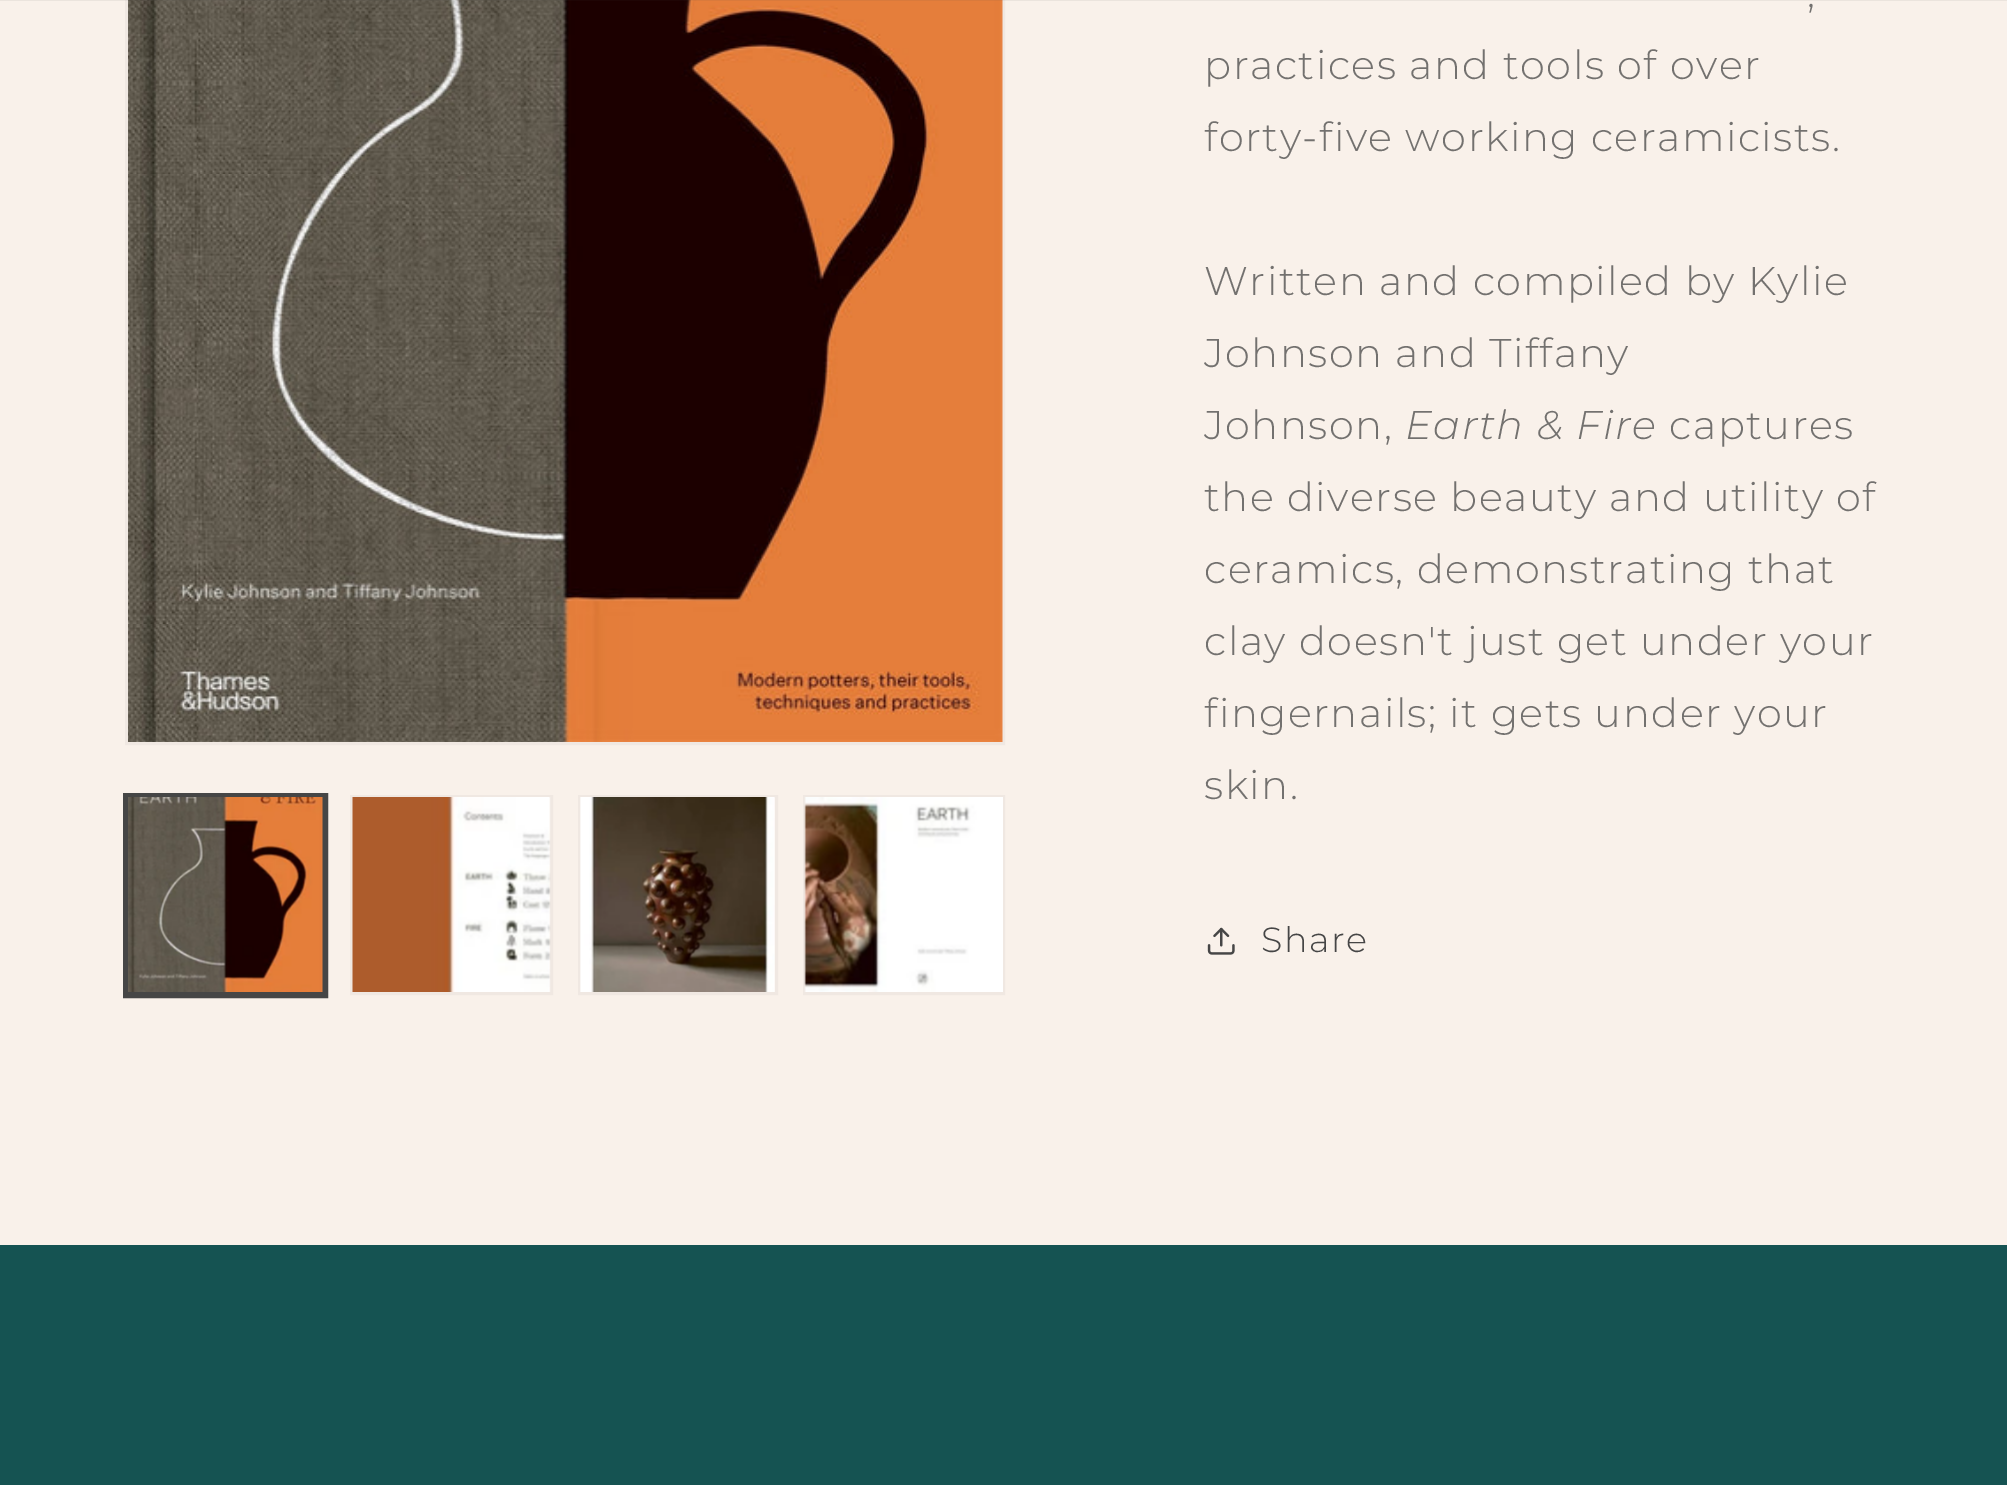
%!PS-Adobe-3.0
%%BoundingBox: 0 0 2007 1485
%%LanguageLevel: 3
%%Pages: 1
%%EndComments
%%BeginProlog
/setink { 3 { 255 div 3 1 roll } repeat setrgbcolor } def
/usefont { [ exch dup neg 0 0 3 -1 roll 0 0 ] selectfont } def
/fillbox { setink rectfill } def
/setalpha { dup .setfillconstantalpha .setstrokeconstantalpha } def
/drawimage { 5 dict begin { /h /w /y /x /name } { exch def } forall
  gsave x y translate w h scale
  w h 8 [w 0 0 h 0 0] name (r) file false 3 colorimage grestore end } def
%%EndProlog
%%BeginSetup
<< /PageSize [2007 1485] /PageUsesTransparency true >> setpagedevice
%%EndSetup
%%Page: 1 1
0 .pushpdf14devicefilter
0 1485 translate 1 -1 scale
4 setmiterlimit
0 0 2007 1485 249 241 234 fillbox
240 232 226 setink
3 setlinewidth
126.5 -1.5 877 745 rectstroke
(assets/img1.rgb) 128 0 875 742 drawimage
0.08 setalpha
0 0 2007 1 70 70 70 fillbox
1 setalpha
124.5 794.5 202 202 rectstroke
126.5 796.5 197 197 rectstroke
(assets/img2.rgb) 128 797 195 195 drawimage
240 232 226 setink
351.5 796.5 200 197 rectstroke
(assets/img3.rgb) 352 797 199 195 drawimage
579.5 796.5 197 197 rectstroke
(assets/img4.rgb) 580 797 195 195 drawimage
804.5 796.5 199 197 rectstroke
(assets/img5.rgb) 804 797 199 195 drawimage
/Montserrat-Light 40 usefont
115 113 111 setink
1807 7 moveto 1.5 0 (,) ashow
1204 79 moveto 1.5 0 (practices and tools of over) ashow
1204 151 moveto 1.5 0 (forty-five working ceramicists.) ashow
1204 295 moveto 1.5 0 (Written and compiled by Kylie) ashow
1204 367 moveto 1.5 0 (Johnson and Tiffany) ashow
1204 439 moveto 1.5 0 (Johnson,) ashow
/Montserrat-LightItalic 40 usefont
1405 439 moveto 1.5 0 (Earth & Fire) ashow
/Montserrat-Light 40 usefont
1669 439 moveto 1.5 0 (captures) ashow
1204 511 moveto 1.5 0 (the diverse beauty and utility of) ashow
1204 583 moveto 1.5 0 (ceramics, demonstrating that) ashow
1204 655 moveto 1.5 0 (clay doesn't just get under your) ashow
1204 727 moveto 1.5 0 (fingernails; it gets under your) ashow
1204 799 moveto 1.5 0 (skin.) ashow
(assets/img6.rgb) 1207 927 28 28 drawimage
/Montserrat-Light 35 usefont
70 70 70 setink
1261 952 moveto 1.5 0 (Share) ashow
0 1245 2007 240 21 83 82 fillbox
.poppdf14devicefilter showpage
%%EOF
